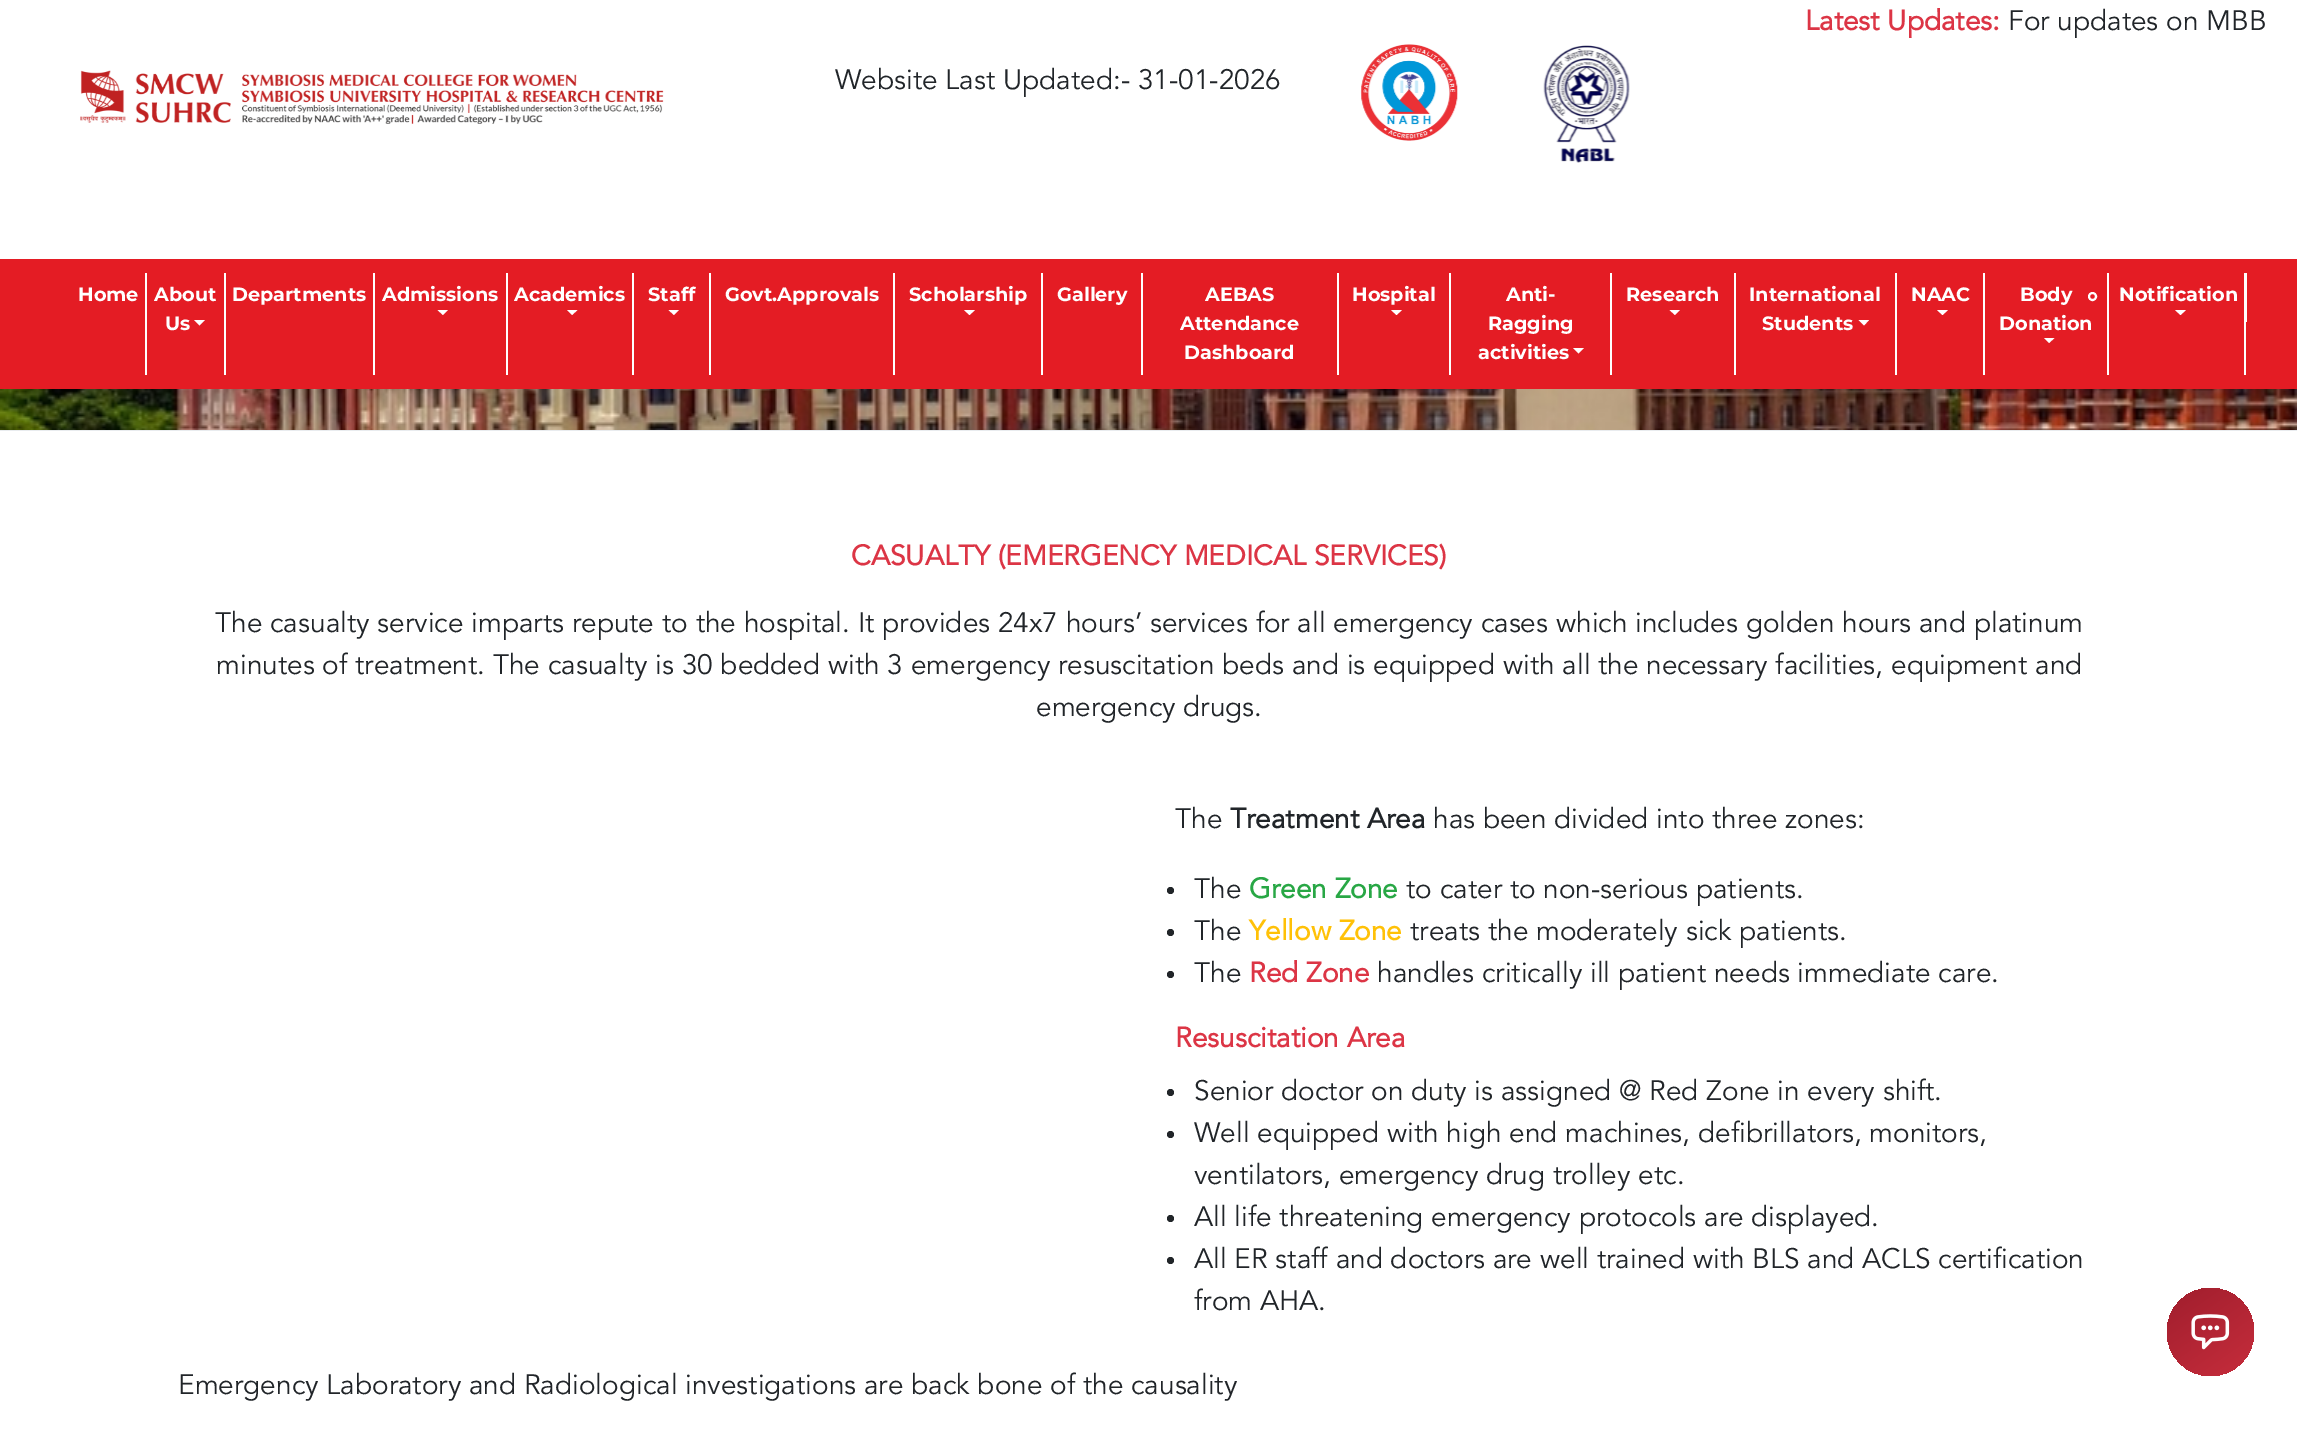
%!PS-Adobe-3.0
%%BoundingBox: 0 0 2297 1444
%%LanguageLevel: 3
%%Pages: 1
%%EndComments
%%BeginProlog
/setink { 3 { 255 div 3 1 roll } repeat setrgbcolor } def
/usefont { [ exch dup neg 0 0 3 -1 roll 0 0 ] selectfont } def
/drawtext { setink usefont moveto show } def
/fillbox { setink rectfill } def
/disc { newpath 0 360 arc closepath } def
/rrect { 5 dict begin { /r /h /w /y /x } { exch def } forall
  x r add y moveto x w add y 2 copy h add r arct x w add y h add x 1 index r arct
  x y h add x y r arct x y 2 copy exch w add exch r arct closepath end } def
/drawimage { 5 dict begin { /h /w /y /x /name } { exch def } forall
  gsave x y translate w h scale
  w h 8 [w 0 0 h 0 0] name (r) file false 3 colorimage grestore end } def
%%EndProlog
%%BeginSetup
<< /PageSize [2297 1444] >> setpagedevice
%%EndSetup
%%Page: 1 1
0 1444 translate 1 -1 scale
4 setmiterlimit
0 0 2297 1444 255 255 255 fillbox
(Latest Updates:) 1805 30 /Avenir-Bold 28 220 53 69 drawtext
(For updates on MBB) 2008 30 /Avenir-Regular 28 33 37 41 drawtext
(assets/img1.rgb) 80 70 584 54 drawimage
(Website Last Updated:- 31-01-2026) 835 89 /Avenir-Regular 28 33 37 41 drawtext
(assets/img2.rgb) 1360 44 98 97 drawimage
(assets/img3.rgb) 1543 45 87 118 drawimage
0 259 2297 130 228 28 36 fillbox
145 273 2 102 255 255 255 fillbox
(Home) 78 301 /Montserrat-Bold 19.25 255 255 255 drawtext
224 273 2 102 255 255 255 fillbox
(About) 154 301 /Montserrat-Bold 19.25 255 255 255 drawtext
(Us) 165 330 /Montserrat-Bold 19.25 255 255 255 drawtext
194 320 moveto 205 320 lineto 199.5 325.5 lineto closepath fill
373 273 2 102 255 255 255 fillbox
(Departments) 232 301 /Montserrat-Bold 19.25 255 255 255 drawtext
506 273 2 102 255 255 255 fillbox
(Admissions) 382 301 /Montserrat-Bold 19.25 255 255 255 drawtext
437.5 310 moveto 448 310 lineto 443 315 lineto closepath fill
632 273 2 102 255 255 255 fillbox
(Academics) 514 301 /Montserrat-Bold 19.25 255 255 255 drawtext
567 310 moveto 577.5 310 lineto 572 315 lineto closepath fill
709 273 2 102 255 255 255 fillbox
(Staff) 648 301 /Montserrat-Bold 19.25 255 255 255 drawtext
668.5 310 moveto 679 310 lineto 674 315 lineto closepath fill
893 273 2 102 255 255 255 fillbox
(Govt.Approvals) 725 301 /Montserrat-Bold 19.25 255 255 255 drawtext
1041 273 2 102 255 255 255 fillbox
(Scholarship) 909 301 /Montserrat-Bold 19.25 255 255 255 drawtext
964 310 moveto 975 310 lineto 969.5 315 lineto closepath fill
1141 273 2 102 255 255 255 fillbox
(Gallery) 1057 301 /Montserrat-Bold 19.25 255 255 255 drawtext
1337 273 2 102 255 255 255 fillbox
(AEBAS) 1205 301 /Montserrat-Bold 19.25 255 255 255 drawtext
(Attendance) 1180 330 /Montserrat-Bold 19.25 255 255 255 drawtext
(Dashboard) 1184 359 /Montserrat-Bold 19.25 255 255 255 drawtext
1449 273 2 102 255 255 255 fillbox
(Hospital) 1352 301 /Montserrat-Bold 19.25 255 255 255 drawtext
1391 310 moveto 1402 310 lineto 1396.5 315 lineto closepath fill
1610 273 2 102 255 255 255 fillbox
(Anti-) 1506 301 /Montserrat-Bold 19.25 255 255 255 drawtext
(Ragging) 1488 330 /Montserrat-Bold 19.25 255 255 255 drawtext
(activities) 1478 359 /Montserrat-Bold 19.25 255 255 255 drawtext
1573 348 moveto 1584 348 lineto 1578.5 353.5 lineto closepath fill
1734 273 2 102 255 255 255 fillbox
(Research) 1626 301 /Montserrat-Bold 19.25 255 255 255 drawtext
1669.5 310 moveto 1680 310 lineto 1675 315 lineto closepath fill
1895 273 2 102 255 255 255 fillbox
(International) 1749 301 /Montserrat-Bold 19.25 255 255 255 drawtext
(Students) 1762 330 /Montserrat-Bold 19.25 255 255 255 drawtext
1858.5 320 moveto 1869 320 lineto 1864 325.5 lineto closepath fill
1983 273 2 102 255 255 255 fillbox
(NAAC) 1911 301 /Montserrat-Bold 19.25 255 255 255 drawtext
1937 310 moveto 1948 310 lineto 1942.5 315 lineto closepath fill
2107 273 2 102 255 255 255 fillbox
(Body) 2020 301 /Montserrat-Bold 19.25 255 255 255 drawtext
(Donation) 1999 330 /Montserrat-Bold 19.25 255 255 255 drawtext
2044 338 moveto 2054.5 338 lineto 2049 343 lineto closepath fill
2244 273 2 102 255 255 255 fillbox
2246 273 1 49 255 255 255 fillbox
2 setlinewidth
2092.5 296.5 3.5 disc stroke
(Notification) 2119 301 /Montserrat-Bold 19.25 255 255 255 drawtext
2175 310 moveto 2186 310 lineto 2180.5 315 lineto closepath fill
0 430 2297 1 233 236 239 fillbox
(assets/img4.rgb) 0 389 2297 41 drawimage
(CASUALTY \(EMERGENCY MEDICAL SERVICES\)) 851 565 /Avenir-Bold 28 220 53 69 drawtext
(The casualty service imparts repute to the hospital. It provides 24x7 hours’ services for all emergency cases which includes golden hours and platinum) 215 632 /Avenir-Regular 28 33 37 41 drawtext
(minutes of treatment. The casualty is 30 bedded with 3 emergency resuscitation beds and is equipped with all the necessary facilities, equipment and) 216 674 /Avenir-Regular 28 33 37 41 drawtext
(emergency drugs.) 1036 716 /Avenir-Regular 28 33 37 41 drawtext
(The) 1175 828 /Avenir-Regular 28 33 37 41 drawtext
(Treatment Area) 1230 828 /Avenir-Bold 28 33 37 41 drawtext
(has been divided into three zones:) 1433 828 /Avenir-Regular 28 33 37 41 drawtext
1170.5 890.5 3.5 disc fill
(The) 1194 898 /Avenir-Regular 28 33 37 41 drawtext
(Green Zone) 1249 898 /Avenir-Bold 28 40 167 69 drawtext
(to cater to non-serious patients.) 1406 898 /Avenir-Regular 28 33 37 41 drawtext
1170.5 932.5 3.5 disc fill
(The) 1194 940 /Avenir-Regular 28 33 37 41 drawtext
(Yellow Zone) 1249 940 /Avenir-Bold 28 255 193 7 drawtext
(treats the moderately sick patients.) 1410 940 /Avenir-Regular 28 33 37 41 drawtext
1170.5 974.5 3.5 disc fill
(The) 1194 982 /Avenir-Regular 28 33 37 41 drawtext
(Red Zone) 1249 982 /Avenir-Bold 28 220 53 69 drawtext
(handles critically ill patient needs immediate care.) 1377 982 /Avenir-Regular 28 33 37 41 drawtext
(Resuscitation Area) 1175 1047 /Avenir-Bold 28 220 53 69 drawtext
33 37 41 setink
1170.5 1092.5 3.5 disc fill
(Senior doctor on duty is assigned @ Red Zone in every shift.) 1194 1100 /Avenir-Regular 28 33 37 41 drawtext
1170.5 1134.5 3.5 disc fill
(Well equipped with high end machines, defibrillators, monitors,) 1194 1142 /Avenir-Regular 28 33 37 41 drawtext
(ventilators, emergency drug trolley etc.) 1194 1184 /Avenir-Regular 28 33 37 41 drawtext
1170.5 1218.5 3.5 disc fill
(All life threatening emergency protocols are displayed.) 1194 1226 /Avenir-Regular 28 33 37 41 drawtext
1170.5 1260.5 3.5 disc fill
(All ER staff and doctors are well trained with BLS and ACLS certification) 1194 1268 /Avenir-Regular 28 33 37 41 drawtext
(from AHA.) 1194 1310 /Avenir-Regular 28 33 37 41 drawtext
(Emergency Laboratory and Radiological investigations are back bone of the causality) 178 1394 /Avenir-Regular 28 33 37 41 drawtext
gsave 2167 1288 87 88 43.5 rrect clip newpath
<< /ShadingType 2 /ColorSpace /DeviceRGB /Coords [2175 1282 2245 1382] /Extend [true true] /Function << /FunctionType 2 /Domain [0 1] /C0 [0.627 0.118 0.176] /C1 [0.776 0.176 0.235] /N 1 >> >> shfill grestore
(assets/img5.rgb) 2191 1314 39 36 drawimage
showpage
%%EOF
